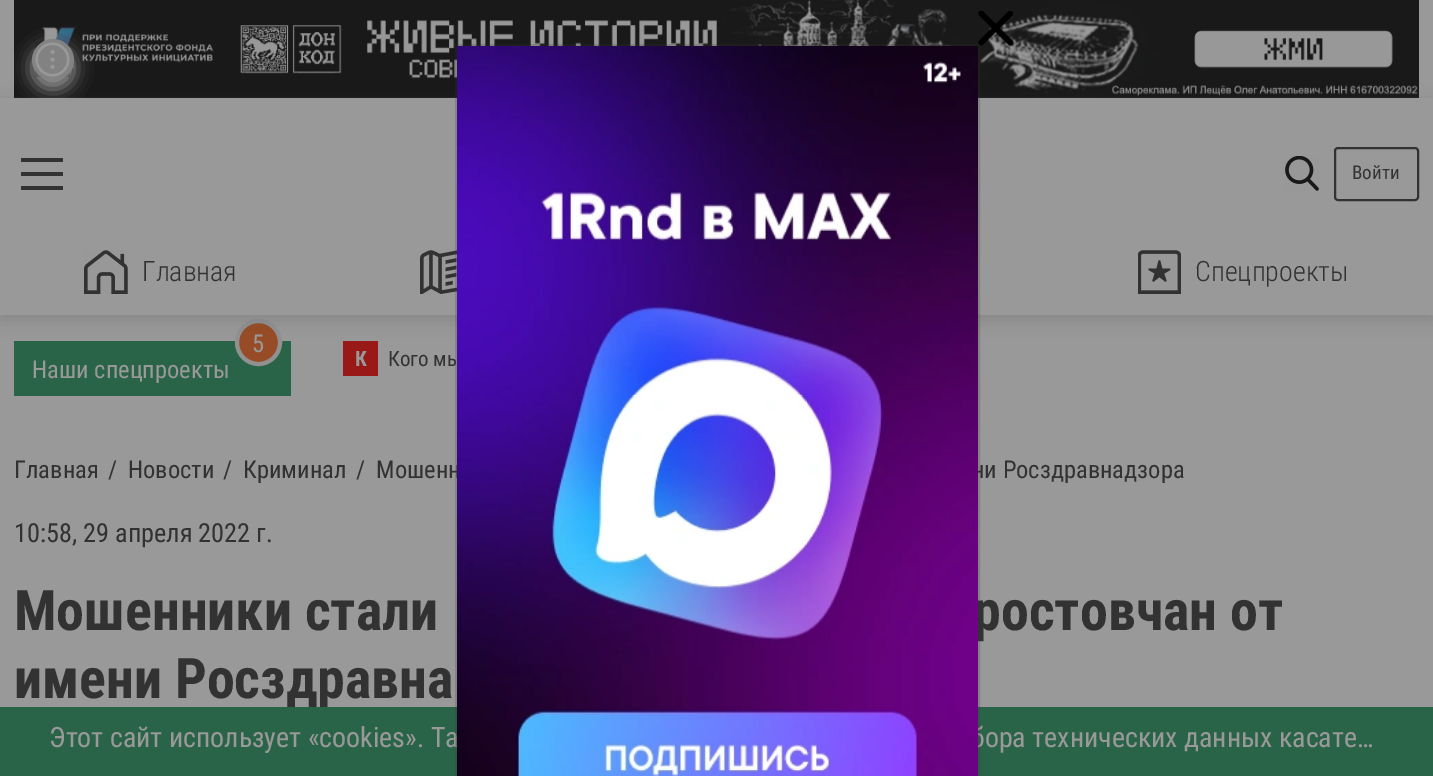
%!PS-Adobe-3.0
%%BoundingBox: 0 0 1433 776
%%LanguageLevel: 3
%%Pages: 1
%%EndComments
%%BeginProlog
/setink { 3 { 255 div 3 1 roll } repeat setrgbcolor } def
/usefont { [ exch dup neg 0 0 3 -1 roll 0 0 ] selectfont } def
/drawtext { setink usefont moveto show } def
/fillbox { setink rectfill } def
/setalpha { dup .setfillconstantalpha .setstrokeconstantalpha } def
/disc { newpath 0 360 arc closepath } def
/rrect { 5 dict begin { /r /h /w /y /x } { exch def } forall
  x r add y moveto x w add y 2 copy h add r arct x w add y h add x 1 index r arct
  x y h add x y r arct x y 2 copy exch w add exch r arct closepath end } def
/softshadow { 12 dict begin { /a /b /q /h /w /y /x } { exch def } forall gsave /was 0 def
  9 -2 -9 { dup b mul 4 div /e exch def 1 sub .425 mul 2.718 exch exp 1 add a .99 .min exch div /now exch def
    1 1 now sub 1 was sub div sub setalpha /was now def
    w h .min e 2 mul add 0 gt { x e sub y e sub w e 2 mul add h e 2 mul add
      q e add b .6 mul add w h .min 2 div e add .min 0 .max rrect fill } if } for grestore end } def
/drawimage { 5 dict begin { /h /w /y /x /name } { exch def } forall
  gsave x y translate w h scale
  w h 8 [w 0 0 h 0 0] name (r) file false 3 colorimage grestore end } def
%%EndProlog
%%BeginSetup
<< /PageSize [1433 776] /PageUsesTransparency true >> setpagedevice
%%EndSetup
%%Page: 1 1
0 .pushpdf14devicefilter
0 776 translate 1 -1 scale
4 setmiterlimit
0 0 1433 776 153 153 153 fillbox
(assets/img1.rgb) 14 0 1405 98 drawimage
gsave
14 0 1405 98 rectclip
32 47 42 42 21 9 1 softshadow
grestore
131 131 131 setink
53 60 21 disc fill
(assets/img2.rgb) 35 42 35 35 drawimage
14 341 277 55 42 100 72 fillbox
151 76 39 setink
258.5 342.5 21.5 disc gsave fill grestore
145 145 145 setink
4 setlinewidth
stroke
343 341 35 35 153 25 25 fillbox
gsave
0 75 moveto 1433 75 lineto 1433 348 lineto 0 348 lineto closepath 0 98 moveto 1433 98 lineto 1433 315 lineto 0 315 lineto closepath eoclip newpath
64 64 64 setink
0 103 1433 217 0 9 0.2 softshadow
grestore
(assets/img7.rgb) 420 250 37 44 drawimage
(Кого мы) 388 366 /RobotoCondensed-Regular 21 50 50 50 drawtext
(Мошенн) 376 478 /RobotoCondensed-Regular 24.5 50 50 50 drawtext
(ни Росздравнадзора) 972 478 /RobotoCondensed-Regular 24.5 50 50 50 drawtext
(ростовчан от) 973 630 /RobotoCondensed-Bold 56 50 50 50 drawtext
(имени Росздравна) 14 698 /RobotoCondensed-Bold 56 50 50 50 drawtext
0 707 1433 69 42 100 72 fillbox
(Этот сайт использует «cookies». Та) 49 747 /RobotoCondensed-Regular 28 153 153 153 drawtext
(бора технических данных касате…) 971 747 /RobotoCondensed-Regular 28 153 153 153 drawtext
0.2 setalpha
50 50 50 setink
2 setlinewidth
456 45 523 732 rectstroke
1 setalpha
(assets/img3.rgb) 978 11 35 35 drawimage
(assets/img4.rgb) 457 46 521 730 drawimage
21 172 42 4 50 50 50 fillbox
21 158 42 4 50 50 50 fillbox
21 186 42 4 50 50 50 fillbox
(assets/img5.rgb) 1285 156 34 35 drawimage
1335 148 83 52 3 rrect stroke
(Войти) 1352 179 /RobotoCondensed-Regular 19 50 50 50 drawtext
(assets/img6.rgb) 84 250 44 44 drawimage
(Главная) 142 281 /RobotoCondensed-Light 28 50 50 50 drawtext
(assets/img8.rgb) 1138 250 43 44 drawimage
(Спецпроекты) 1195 281 /RobotoCondensed-Light 28 50 50 50 drawtext
(5) 252 352 /RobotoCondensed-Regular 24.5 153 153 153 drawtext
(Наши спецпроекты) 32 378 /RobotoCondensed-Regular 24.5 153 153 153 drawtext
(К) 355 366 /RobotoCondensed-Bold 21 153 153 153 drawtext
(Главная) 14 478 /RobotoCondensed-Regular 24.5 50 50 50 drawtext
(/) 108 478 /RobotoCondensed-Regular 24.5 50 50 50 drawtext
(Новости) 128 478 /RobotoCondensed-Regular 24.5 50 50 50 drawtext
(/) 223 478 /RobotoCondensed-Regular 24.5 50 50 50 drawtext
(Криминал) 243 478 /RobotoCondensed-Regular 24.5 50 50 50 drawtext
(/) 356 478 /RobotoCondensed-Regular 24.5 50 50 50 drawtext
(10:58, 29 апреля 2022 г.) 14 542 /RobotoCondensed-Regular 26.25 50 50 50 drawtext
(Мошенники стали) 14 630 /RobotoCondensed-Bold 56 50 50 50 drawtext
.poppdf14devicefilter showpage
%%EOF
